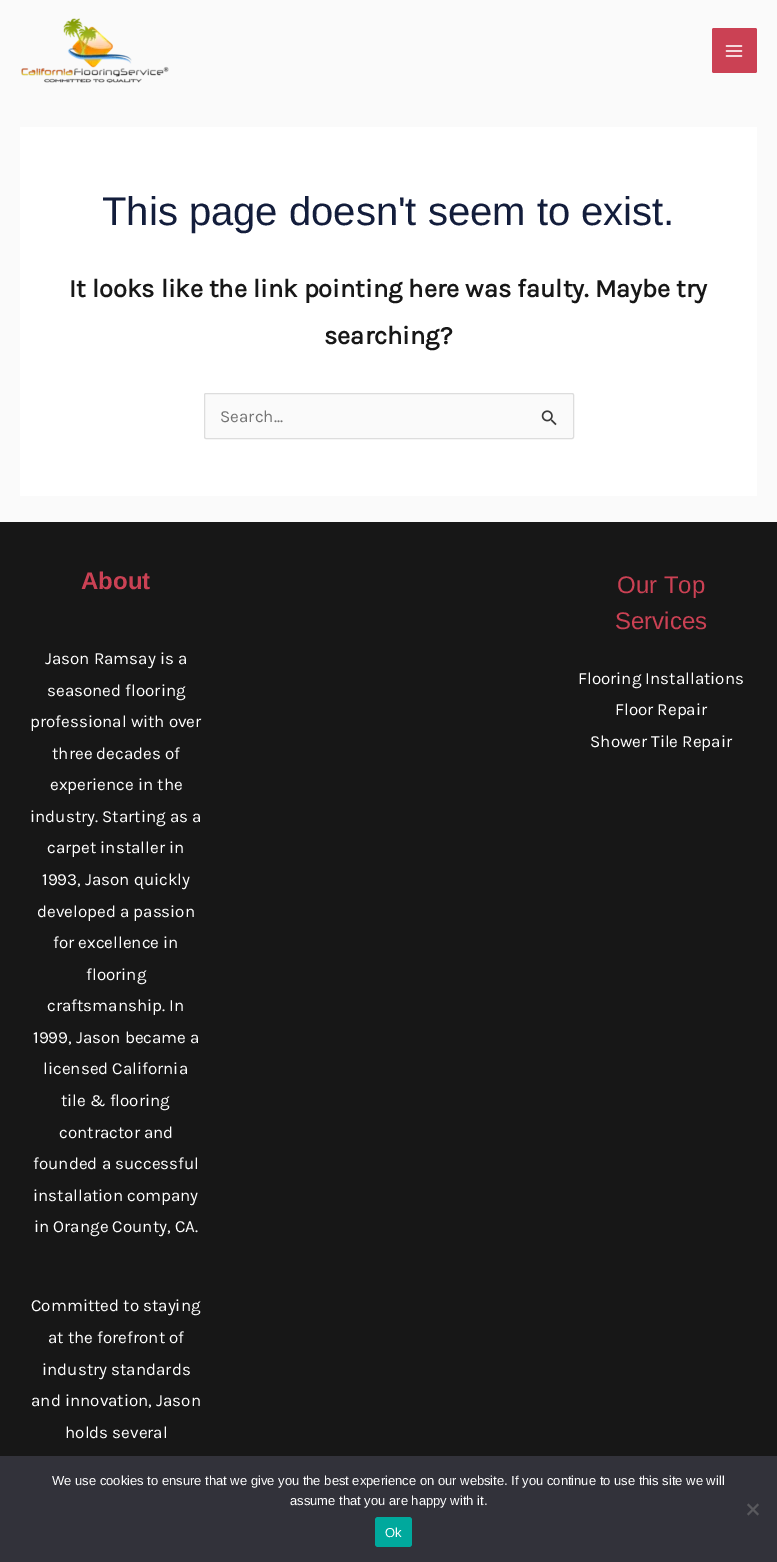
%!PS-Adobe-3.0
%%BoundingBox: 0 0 777 1562
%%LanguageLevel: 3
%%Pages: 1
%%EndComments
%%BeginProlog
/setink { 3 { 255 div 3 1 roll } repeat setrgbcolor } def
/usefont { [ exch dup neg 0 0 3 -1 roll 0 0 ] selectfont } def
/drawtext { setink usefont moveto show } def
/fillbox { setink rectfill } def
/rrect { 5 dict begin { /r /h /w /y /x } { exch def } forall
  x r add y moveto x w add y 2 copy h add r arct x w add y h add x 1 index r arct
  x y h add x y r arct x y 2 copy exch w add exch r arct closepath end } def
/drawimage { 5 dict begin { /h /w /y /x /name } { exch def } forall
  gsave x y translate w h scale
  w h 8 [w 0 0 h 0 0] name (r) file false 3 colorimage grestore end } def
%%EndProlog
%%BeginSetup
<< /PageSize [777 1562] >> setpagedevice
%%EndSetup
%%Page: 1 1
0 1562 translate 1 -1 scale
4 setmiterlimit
0 0 777 1562 250 250 250 fillbox
(assets/img1.rgb) 21 18 148 65 drawimage
203 65 84 setink
712 28 45 45 2 rrect fill
(assets/img2.rgb) 725 45 18 12 drawimage
20 127 737 369 255 255 255 fillbox
(This page doesn't seem to exist.) 102 225 /LiberationSans-Regular 40 19 29 59 drawtext
(It looks like the link pointing here was faulty. Maybe try) 69 297 /Karla-Bold 25.5 23 23 23 drawtext
(searching?) 324 344 /Karla-Bold 25.5 23 23 23 drawtext
250 250 250 setink
204.5 393.5 369 45 1.5 rrect gsave fill grestore
221 221 221 setink
stroke
(Search...) 220 422 /Karla-Regular 17 117 117 117 drawtext
(assets/img3.rgb) 541 410 16 16 drawimage
0 522 777 934 23 23 23 fillbox
(About) 81 589 /LiberationSans-Bold 24 203 65 84 drawtext
(Jason Ramsay is a) 45 664 /Karla-Regular 17 255 255 255 drawtext
(seasoned flooring) 47 696 /Karla-Regular 17 255 255 255 drawtext
(professional with over) 30 727 /Karla-Regular 17 255 255 255 drawtext
(three decades of) 52 759 /Karla-Regular 17 255 255 255 drawtext
(experience in the) 50 790 /Karla-Regular 17 255 255 255 drawtext
(industry. Starting as a) 30 822 /Karla-Regular 17 255 255 255 drawtext
(carpet installer in) 47 853 /Karla-Regular 17 255 255 255 drawtext
(1993, Jason quickly) 42 885 /Karla-Regular 17 255 255 255 drawtext
(developed a passion) 37 917 /Karla-Regular 17 255 255 255 drawtext
(for excellence in) 53 948 /Karla-Regular 17 255 255 255 drawtext
(flooring) 86 980 /Karla-Regular 17 255 255 255 drawtext
(craftsmanship. In) 47 1011 /Karla-Regular 17 255 255 255 drawtext
(1999, Jason became a) 33 1043 /Karla-Regular 17 255 255 255 drawtext
(licensed California) 43 1074 /Karla-Regular 17 255 255 255 drawtext
(tile & flooring) 61 1106 /Karla-Regular 17 255 255 255 drawtext
(contractor and) 59 1138 /Karla-Regular 17 255 255 255 drawtext
(founded a successful) 33 1169 /Karla-Regular 17 255 255 255 drawtext
(installation company) 33 1201 /Karla-Regular 17 255 255 255 drawtext
(in Orange County, CA.) 34 1232 /Karla-Regular 17 255 255 255 drawtext
(Committed to staying) 31 1311 /Karla-Regular 17 255 255 255 drawtext
(at the forefront of) 48 1343 /Karla-Regular 17 255 255 255 drawtext
(industry standards) 42 1375 /Karla-Regular 17 255 255 255 drawtext
(and innovation, Jason) 31 1406 /Karla-Regular 17 255 255 255 drawtext
(holds several) 65 1438 /Karla-Regular 17 255 255 255 drawtext
(Our Top) 617 593 /LiberationSans-Regular 24 203 65 84 drawtext
(Services) 615 629 /LiberationSans-Regular 24 203 65 84 drawtext
(Flooring Installations) 578 684 /Karla-Regular 17 255 255 255 drawtext
(Floor Repair) 615 715 /Karla-Regular 17 255 255 255 drawtext
(Shower Tile Repair) 590 747 /Karla-Regular 17 255 255 255 drawtext
0 1456 777 106 50 50 58 fillbox
(We use cookies to ensure that we give you the best experience on our website. If you continue to use this site we will) 52 1485 /LiberationSans-Regular 13 255 255 255 drawtext
(assume that you are happy with it.) 290 1505 /LiberationSans-Regular 13 255 255 255 drawtext
89 89 93 setink
757.5 1503.5 moveto 759 1505 lineto 748.5 1515.5 lineto 747 1514 lineto closepath fill
747 1505 moveto 748.5 1503.5 lineto 759 1514 lineto 757.5 1515.5 lineto closepath fill
0 169 157 setink
375 1517 37 30 3 rrect fill
(Ok) 385 1537 /LiberationSans-Regular 13 255 255 255 drawtext
showpage
%%EOF
